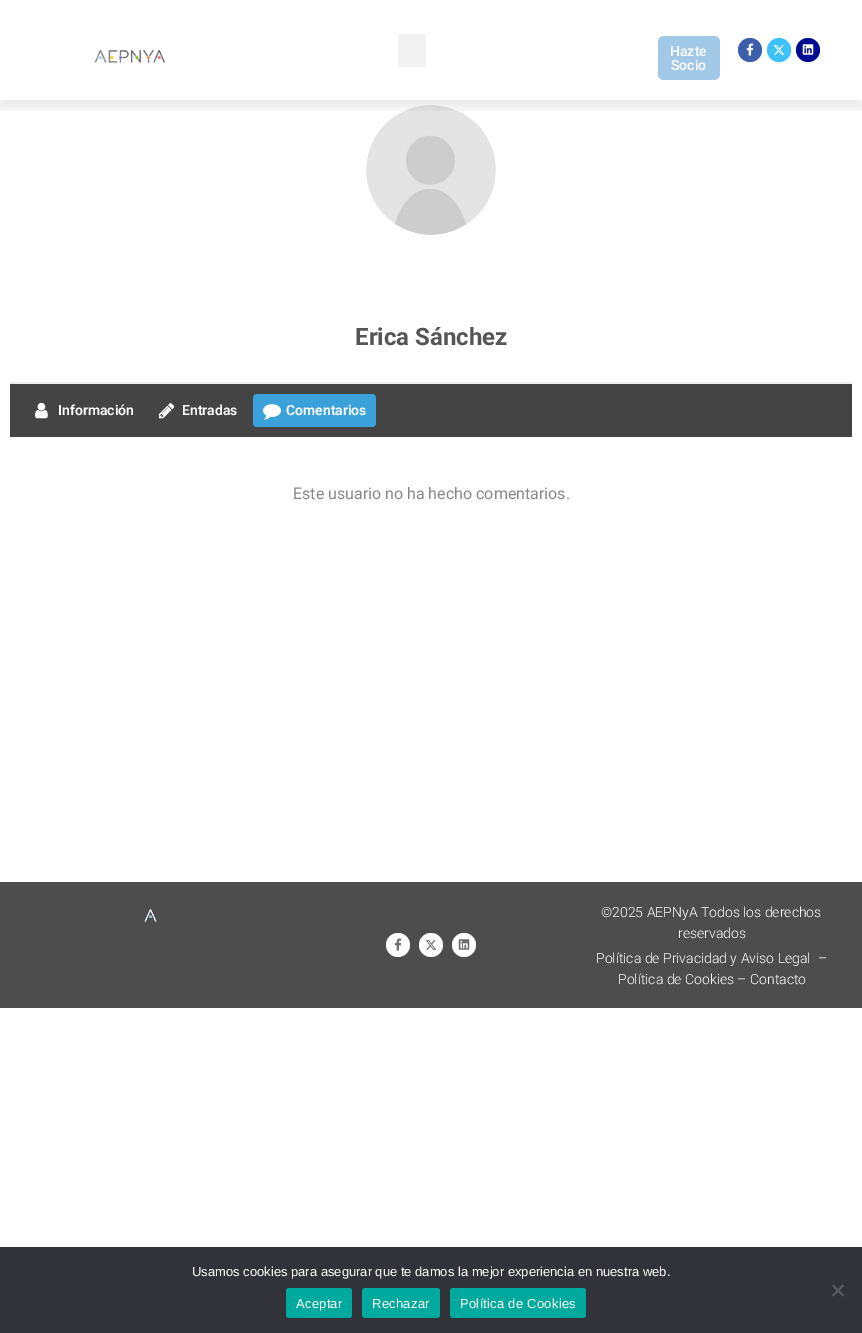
%!PS-Adobe-3.0
%%BoundingBox: 0 0 862 1333
%%LanguageLevel: 3
%%Pages: 1
%%EndComments
%%BeginProlog
/setink { 3 { 255 div 3 1 roll } repeat setrgbcolor } def
/usefont { [ exch dup neg 0 0 3 -1 roll 0 0 ] selectfont } def
/drawtext { setink usefont moveto show } def
/fillbox { setink rectfill } def
/setalpha { dup .setfillconstantalpha .setstrokeconstantalpha } def
/disc { newpath 0 360 arc closepath } def
/rrect { 5 dict begin { /r /h /w /y /x } { exch def } forall
  x r add y moveto x w add y 2 copy h add r arct x w add y h add x 1 index r arct
  x y h add x y r arct x y 2 copy exch w add exch r arct closepath end } def
/softshadow { 12 dict begin { /a /b /q /h /w /y /x } { exch def } forall gsave /was 0 def
  9 -2 -9 { dup b mul 4 div /e exch def 1 sub .425 mul 2.718 exch exp 1 add a .99 .min exch div /now exch def
    1 1 now sub 1 was sub div sub setalpha /was now def
    w h .min e 2 mul add 0 gt { x e sub y e sub w e 2 mul add h e 2 mul add
      q e add b .6 mul add w h .min 2 div e add .min 0 .max rrect fill } if } for grestore end } def
/drawimage { 5 dict begin { /h /w /y /x /name } { exch def } forall
  gsave x y translate w h scale
  w h 8 [w 0 0 h 0 0] name (r) file false 3 colorimage grestore end } def
%%EndProlog
%%BeginSetup
<< /PageSize [862 1333] /PageUsesTransparency true >> setpagedevice
%%EndSetup
%%Page: 1 1
0 .pushpdf14devicefilter
0 1333 translate 1 -1 scale
4 setmiterlimit
0 0 862 1333 255 255 255 fillbox
(assets/img5.rgb) 366 105 130 130 drawimage
gsave
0 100 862 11 rectclip
0 0 0 setink
0 18 862 90 0 5 0.08 softshadow
grestore
(assets/img1.rgb) 94 49 72 14 drawimage
242 242 242 setink
398 34 28 33 3 rrect fill
162 200 231 setink
658 36 62 44 6 rrect fill
(Hazte) 670 56 /Roboto-Medium 14 255 255 255 drawtext
(Socio) 671 70 /Roboto-Medium 14 255 255 255 drawtext
60 94 171 setink
750 50 12 disc fill
(assets/img2.rgb) 746 43 8 13 drawimage
61 193 249 setink
779 50 12 disc fill
(assets/img3.rgb) 773 45 12 10 drawimage
0 11 144 setink
808 50 12 disc fill
(assets/img4.rgb) 802 44 12 11 drawimage
10 382 842 2 238 238 238 fillbox
(Erica Sánchez) 355 345 /Roboto-Bold 24 85 85 85 drawtext
10 384 842 53 68 68 68 fillbox
(assets/img6.rgb) 35 402 13 17 drawimage
(Información) 58 415 /Roboto-SemiBold 14 255 255 255 drawtext
(assets/img7.rgb) 159 403 16 16 drawimage
(Entradas) 182 415 /Roboto-SemiBold 14 255 255 255 drawtext
59 161 218 setink
253 394 123 33 4 rrect fill
(assets/img8.rgb) 263 404 18 16 drawimage
(Comentarios) 286 415 /Roboto-SemiBold 14 255 255 255 drawtext
(Este usuario no ha hecho comentarios.) 293 499 /Roboto-Regular 16 136 136 136 drawtext
0 882 862 126 77 77 77 fillbox
(assets/img9.rgb) 144 909 13 13 drawimage
(©2025 AEPNyA Todos los derechos) 601 917 /Roboto-Light 14 255 255 255 drawtext
(reservados) 678 938 /Roboto-Light 14 255 255 255 drawtext
(Política de Privacidad y Aviso Legal) 596 963 /Roboto-Light 14 255 255 255 drawtext
(–) 818 963 /Roboto-Light 14 255 255 255 drawtext
(Política de Cookies – Contacto) 618 984 /Roboto-Light 14 255 255 255 drawtext
398 945 12 disc fill
(assets/img10.rgb) 394 938 8 13 drawimage
431 945 12 disc fill
(assets/img11.rgb) 425 940 12 10 drawimage
464 945 12 disc fill
(assets/img12.rgb) 458 939 12 11 drawimage
0 1247 862 86 50 50 58 fillbox
(Usamos cookies para asegurar que te damos la mejor experiencia en nuestra web.) 192 1276 /LiberationSans-Regular 13 255 255 255 drawtext
89 89 93 setink
842.5 1284.5 moveto 844 1286 lineto 833.5 1296.5 lineto 832 1295 lineto closepath fill
832 1286 moveto 833.5 1284.5 lineto 844 1295 lineto 842.5 1296.5 lineto closepath fill
0 169 157 setink
286 1288 66 30 3 rrect fill
255 255 255 setink
296 1308 moveto 0.25 0 (Aceptar) ashow
0 169 157 setink
362 1288 78 30 3 rrect fill
255 255 255 setink
372 1308 moveto 0.25 0 (Rechazar) ashow
0 169 157 setink
450 1288 136 30 3 rrect fill
255 255 255 setink
460 1308 moveto 0.25 0 (Política de Cookies) ashow
.poppdf14devicefilter showpage
%%EOF
